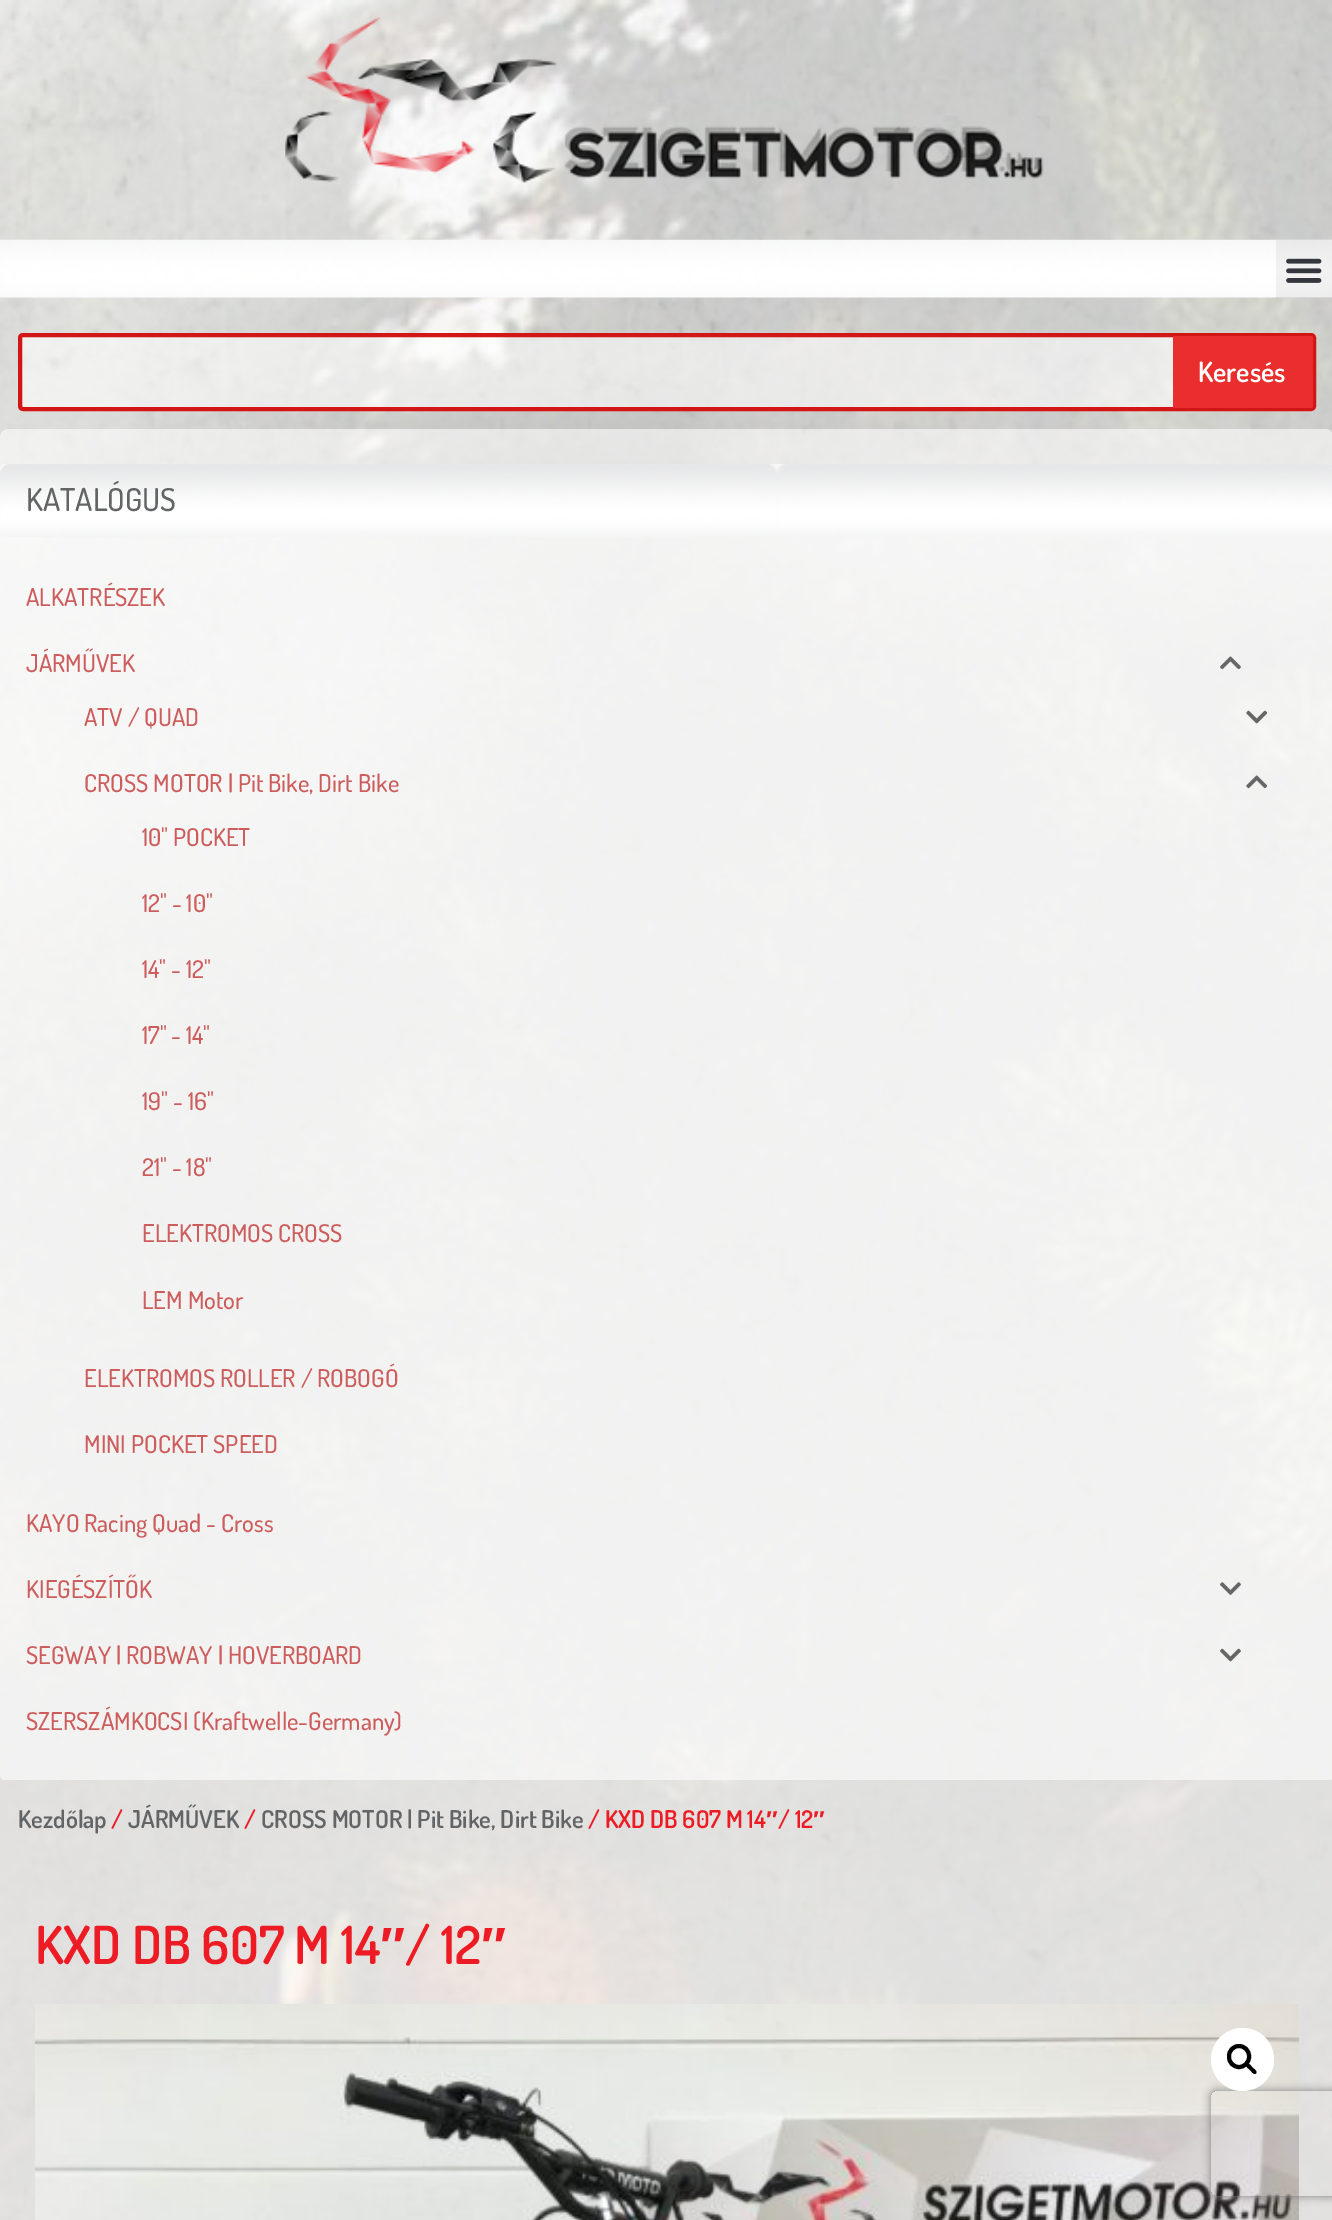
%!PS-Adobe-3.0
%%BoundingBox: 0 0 1332 2220
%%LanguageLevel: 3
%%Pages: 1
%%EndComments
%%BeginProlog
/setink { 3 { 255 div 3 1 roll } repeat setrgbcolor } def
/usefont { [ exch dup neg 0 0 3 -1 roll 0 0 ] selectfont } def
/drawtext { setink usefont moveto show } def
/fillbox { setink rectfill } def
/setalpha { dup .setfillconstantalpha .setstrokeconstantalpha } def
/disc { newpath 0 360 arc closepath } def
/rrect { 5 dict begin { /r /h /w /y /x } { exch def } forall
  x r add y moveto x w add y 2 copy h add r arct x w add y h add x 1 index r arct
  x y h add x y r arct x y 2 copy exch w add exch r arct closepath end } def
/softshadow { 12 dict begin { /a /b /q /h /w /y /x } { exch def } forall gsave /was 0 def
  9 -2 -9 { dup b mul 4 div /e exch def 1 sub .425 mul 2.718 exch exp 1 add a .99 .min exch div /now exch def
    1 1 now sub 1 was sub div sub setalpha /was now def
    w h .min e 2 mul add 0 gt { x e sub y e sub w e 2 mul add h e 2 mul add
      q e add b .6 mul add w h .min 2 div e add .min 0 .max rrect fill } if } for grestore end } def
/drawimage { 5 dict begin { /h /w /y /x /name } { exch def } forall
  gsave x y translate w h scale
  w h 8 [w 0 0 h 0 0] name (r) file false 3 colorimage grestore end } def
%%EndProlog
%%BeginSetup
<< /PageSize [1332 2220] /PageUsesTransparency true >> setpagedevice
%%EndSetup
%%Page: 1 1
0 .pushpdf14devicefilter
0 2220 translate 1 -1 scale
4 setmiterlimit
0 0 1332 2220 255 255 255 fillbox
(assets/img1.rgb) 0 0 1332 2220 drawimage
(assets/img2.rgb) 285 17 765 166 drawimage
(assets/img3.rgb) 0 239 1332 59 drawimage
0.05 setalpha
1276 240 56 58 0 0 0 fillbox
1 setalpha
(assets/img4.rgb) 1286 258 36 25 drawimage
0.58 setalpha
255 255 255 setink
20 335 1294 74 3 rrect fill
1 setalpha
210 21 21 setink
4 setlinewidth
20 335 1294 74 3 rrect stroke
234 45 45 setink
1173 336 moveto 1311 336 lineto 1312 336 1313 337 1313 338 curveto 1313 406 lineto 1313 407 1312 408 1311 408 curveto 1173 408 lineto closepath fill
(Keresés) 1198 382 /Dosis-SemiBold 28 255 255 255 drawtext
0.58 setalpha
0 429 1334 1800 9 rrect fill
0 464 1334 1316 5 rrect fill
1 setalpha
(assets/img5.rgb) 0 464 1332 73 drawimage
(KATALÓGUS) 26 511 /Dosis-Medium 31.5 99 100 102 drawtext
(ALKATRÉSZEK) 26 606 /Dosis-Medium 24.5 205 92 92 drawtext
(JÁRMŰVEK) 26 672 /Dosis-Medium 24.5 205 92 92 drawtext
(assets/img6.rgb) 1220 656 21 14 drawimage
(ATV / QUAD) 84 726 /Dosis-Medium 24.5 205 92 92 drawtext
(assets/img7.rgb) 1246 710 22 14 drawimage
(CROSS MOTOR | Pit Bike, Dirt Bike) 84 792 /Dosis-Medium 24.5 205 92 92 drawtext
(assets/img8.rgb) 1246 775 22 14 drawimage
(10" POCKET) 142 846 /Dosis-Medium 24.5 205 92 92 drawtext
(12" - 10") 142 912 /Dosis-Medium 24.5 205 92 92 drawtext
(14" - 12") 142 978 /Dosis-Medium 24.5 205 92 92 drawtext
(17" - 14") 142 1044 /Dosis-Medium 24.5 205 92 92 drawtext
(19" - 16") 142 1110 /Dosis-Medium 24.5 205 92 92 drawtext
(21" - 18") 142 1176 /Dosis-Medium 24.5 205 92 92 drawtext
(ELEKTROMOS CROSS) 142 1242 /Dosis-Medium 24.5 205 92 92 drawtext
(LEM Motor) 142 1309 /Dosis-Medium 24.5 205 92 92 drawtext
(ELEKTROMOS ROLLER / ROBOGÓ) 84 1387 /Dosis-Medium 24.5 205 92 92 drawtext
(MINI POCKET SPEED) 84 1453 /Dosis-Medium 24.5 205 92 92 drawtext
(KAYO Racing Quad - Cross) 26 1532 /Dosis-Medium 24.5 205 92 92 drawtext
(KIEGÉSZÍTŐK) 26 1598 /Dosis-Medium 24.5 205 92 92 drawtext
(assets/img9.rgb) 1220 1582 21 13 drawimage
(SEGWAY | ROBWAY | HOVERBOARD) 26 1664 /Dosis-Medium 24.5 205 92 92 drawtext
(assets/img10.rgb) 1220 1648 21 14 drawimage
(SZERSZÁMKOCSI \(Kraftwelle-Germany\)) 26 1730 /Dosis-Medium 24.5 205 92 92 drawtext
(Kezdőlap) 18 1828 /Dosis-SemiBold 24.5 99 100 102 drawtext
(/) 111 1828 /Dosis-SemiBold 24.5 237 28 36 drawtext
(JÁRMŰVEK) 128 1828 /Dosis-SemiBold 24.5 99 100 102 drawtext
(/) 244 1828 /Dosis-SemiBold 24.5 237 28 36 drawtext
(CROSS MOTOR | Pit Bike, Dirt Bike) 261 1828 /Dosis-SemiBold 24.5 99 100 102 drawtext
(/ KXD DB 607 M 14) 588 1828 /Dosis-SemiBold 24.5 237 28 36 drawtext
(″) 766 1828 /LiberationSans-Bold 24.5 237 28 36 drawtext
(/ 12) 778 1828 /Dosis-SemiBold 24.5 237 28 36 drawtext
(″) 813 1828 /LiberationSans-Bold 24.5 237 28 36 drawtext
(KXD DB 607 M 14) 35 1964 /Dosis-SemiBold 52.5 237 28 36 drawtext
(″) 380 1964 /LiberationSans-Bold 52.5 237 28 36 drawtext
(/ 12) 405 1964 /Dosis-SemiBold 52.5 237 28 36 drawtext
(″) 481 1964 /LiberationSans-Bold 52.5 237 28 36 drawtext
(assets/img11.rgb) 35 2004 1264 216 drawimage
gsave
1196 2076 moveto 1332 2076 lineto 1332 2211 lineto 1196 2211 lineto closepath 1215 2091 moveto 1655 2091 lineto 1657 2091 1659 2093 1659 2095 curveto 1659 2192 lineto 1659 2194 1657 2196 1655 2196 curveto 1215 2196 lineto 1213 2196 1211 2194 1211 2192 curveto 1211 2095 lineto 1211 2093 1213 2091 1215 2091 curveto closepath eoclip newpath
128 128 128 setink
1211 2091 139 105 4 4.5 1 softshadow
grestore
255 255 255 setink
1242.5 2059.5 31.5 disc fill
0 0 0 setink
1229 2046 20 21 10 rrect stroke
1246.5 2064 moveto 1248.5 2062 1251.5 2066.5 1252.5 2067.5 curveto 1253.5 2068.5 1258 2071.5 1256 2073.5 curveto 1254 2075.5 1251 2071 1250 2070 curveto 1249 2069 1244.5 2066 1246.5 2064 curveto closepath fill
.poppdf14devicefilter showpage
%%EOF
